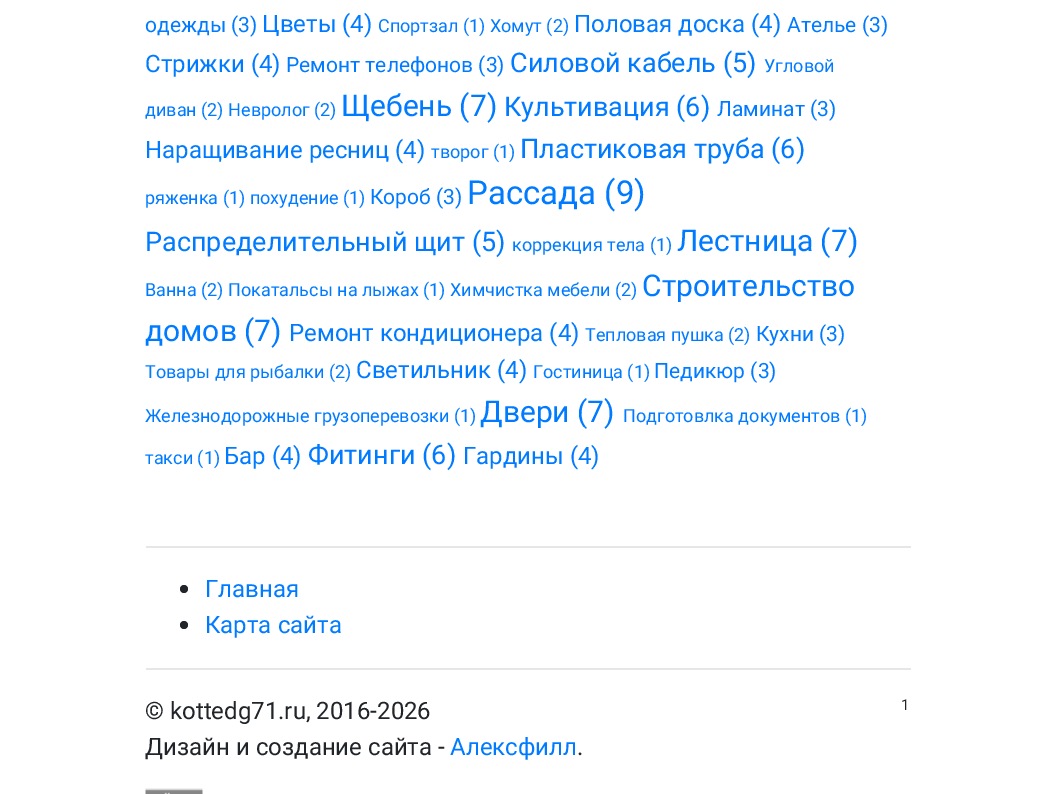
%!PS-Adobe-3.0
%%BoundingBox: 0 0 1054 794
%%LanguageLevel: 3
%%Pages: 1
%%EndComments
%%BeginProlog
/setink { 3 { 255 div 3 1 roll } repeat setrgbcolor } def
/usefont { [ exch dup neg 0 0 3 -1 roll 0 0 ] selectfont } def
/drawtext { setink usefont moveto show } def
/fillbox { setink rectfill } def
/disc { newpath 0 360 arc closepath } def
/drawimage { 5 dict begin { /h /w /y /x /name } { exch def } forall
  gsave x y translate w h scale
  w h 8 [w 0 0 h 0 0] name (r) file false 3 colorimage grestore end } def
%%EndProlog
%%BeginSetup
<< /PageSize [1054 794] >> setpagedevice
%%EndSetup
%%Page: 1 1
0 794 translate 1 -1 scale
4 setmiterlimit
0 0 1054 794 255 255 255 fillbox
(одежды \(3\)) 145 32 /Roboto-Regular 21 0 123 255 drawtext
(Цветы \(4\)) 262 32 /Roboto-Regular 24 0 123 255 drawtext
(Спортзал \(1\) Хомут \(2\)) 378 32 /Roboto-Regular 18 0 123 255 drawtext
(Половая доска \(4\)) 574 32 /Roboto-Regular 24 0 123 255 drawtext
(Ателье \(3\)) 787 32 /Roboto-Regular 21 0 123 255 drawtext
(Стрижки \(4\)) 145 72 /Roboto-Regular 24 0 123 255 drawtext
(Ремонт телефонов \(3\)) 286 72 /Roboto-Regular 21 0 123 255 drawtext
(Силовой кабель \(5\)) 510 72 /Roboto-Regular 27 0 123 255 drawtext
(Угловой) 764 72 /Roboto-Regular 18 0 123 255 drawtext
(диван \(2\) Невролог \(2\)) 145 116 /Roboto-Regular 18 0 123 255 drawtext
(Щебень \(7\)) 341 116 /Roboto-Regular 30 0 123 255 drawtext
(Культивация \(6\)) 504 116 /Roboto-Regular 27 0 123 255 drawtext
(Ламинат \(3\)) 717 116 /Roboto-Regular 21 0 123 255 drawtext
(Наращивание ресниц \(4\)) 145 158 /Roboto-Regular 24 0 123 255 drawtext
(творог \(1\)) 431 158 /Roboto-Regular 18 0 123 255 drawtext
(Пластиковая труба \(6\)) 520 158 /Roboto-Regular 27 0 123 255 drawtext
(ряженка \(1\) похудение \(1\)) 145 204 /Roboto-Regular 18 0 123 255 drawtext
(Короб \(3\)) 370 204 /Roboto-Regular 21 0 123 255 drawtext
(Рассада \(9\)) 467 204 /Roboto-Regular 33 0 123 255 drawtext
(Распределительный щит \(5\)) 145 251 /Roboto-Regular 27 0 123 255 drawtext
(коррекция тела \(1\)) 512 251 /Roboto-Regular 18 0 123 255 drawtext
(Лестница \(7\)) 677 251 /Roboto-Regular 30 0 123 255 drawtext
(Ванна \(2\) Покатальсы на лыжах \(1\) Химчистка мебели \(2\)) 145 296 /Roboto-Regular 18 0 123 255 drawtext
(Строительство) 642 296 /Roboto-Regular 30 0 123 255 drawtext
(домов \(7\)) 145 341 /Roboto-Regular 30 0 123 255 drawtext
(Ремонт кондиционера \(4\)) 289 341 /Roboto-Regular 24 0 123 255 drawtext
(Тепловая пушка \(2\)) 585 341 /Roboto-Regular 18 0 123 255 drawtext
(Кухни \(3\)) 756 341 /Roboto-Regular 21 0 123 255 drawtext
(Товары для рыбалки \(2\)) 145 378 /Roboto-Regular 18 0 123 255 drawtext
(Светильник \(4\)) 356 378 /Roboto-Regular 24 0 123 255 drawtext
(Гостиница \(1\)) 533 378 /Roboto-Regular 18 0 123 255 drawtext
(Педикюр \(3\)) 654 378 /Roboto-Regular 21 0 123 255 drawtext
(Железнодорожные грузоперевозки \(1\)) 145 422 /Roboto-Regular 18 0 123 255 drawtext
(Двери \(7\)) 480 422 /Roboto-Regular 30 0 123 255 drawtext
(Подготовлка документов \(1\)) 623 422 /Roboto-Regular 18 0 123 255 drawtext
(такси \(1\)) 145 464 /Roboto-Regular 18 0 123 255 drawtext
(Бар \(4\)) 224 464 /Roboto-Regular 24 0 123 255 drawtext
(Фитинги \(6\)) 308 464 /Roboto-Regular 27 0 123 255 drawtext
(Гардины \(4\)) 463 464 /Roboto-Regular 24 0 123 255 drawtext
146 546 765 2 230 230 230 fillbox
33 37 41 setink
184 589 4 disc fill
(Главная) 205 597 /Roboto-Regular 24 0 123 255 drawtext
33 37 41 setink
184 625 4 disc fill
(Карта сайта) 205 633 /Roboto-Regular 24 0 123 255 drawtext
146 668 765 2 230 230 230 fillbox
(© kottedg71.ru, 2016-2026) 145 719 /Roboto-Regular 24 33 37 41 drawtext
(1) 901 710 /Roboto-Regular 15 33 37 41 drawtext
(Дизайн и создание сайта -) 145 755 /Roboto-Regular 24 33 37 41 drawtext
(Алексфилл) 450 755 /Roboto-Regular 24 0 123 255 drawtext
(.) 577 755 /Roboto-Regular 24 33 37 41 drawtext
(assets/img1.rgb) 145 788 58 6 drawimage
showpage
%%EOF
